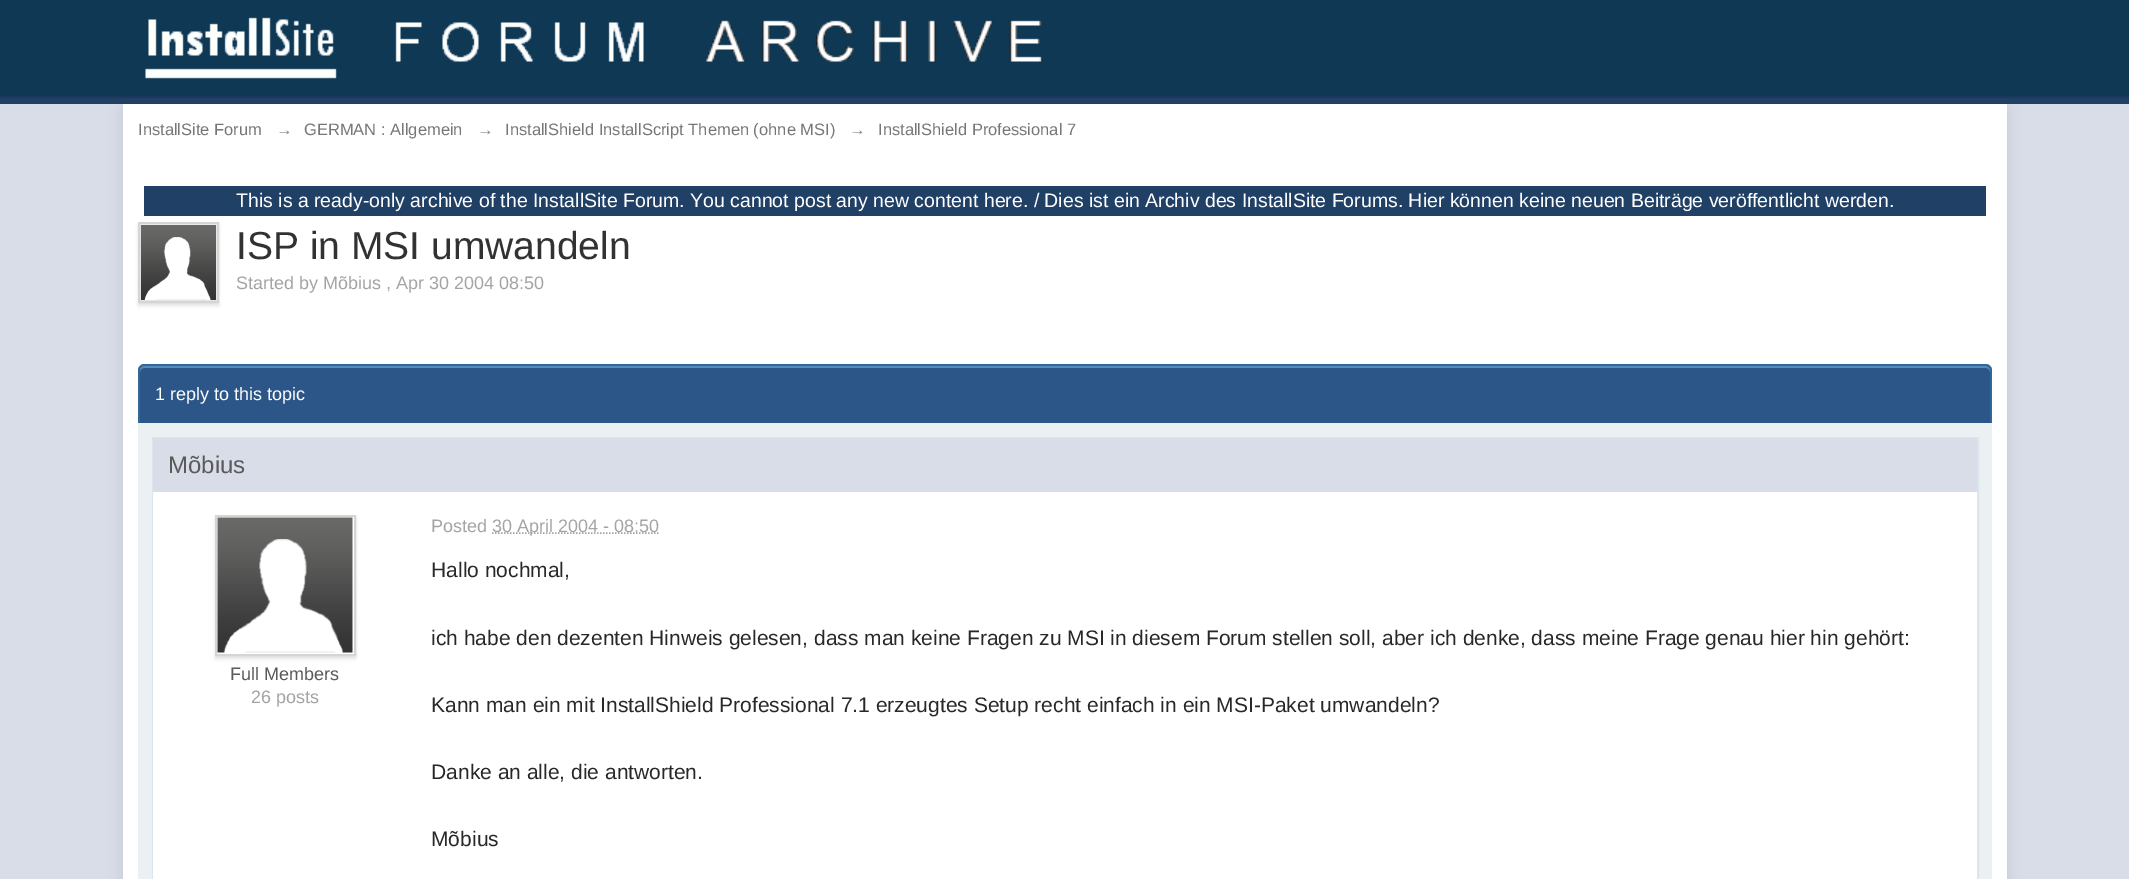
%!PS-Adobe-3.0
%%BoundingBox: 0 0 2129 879
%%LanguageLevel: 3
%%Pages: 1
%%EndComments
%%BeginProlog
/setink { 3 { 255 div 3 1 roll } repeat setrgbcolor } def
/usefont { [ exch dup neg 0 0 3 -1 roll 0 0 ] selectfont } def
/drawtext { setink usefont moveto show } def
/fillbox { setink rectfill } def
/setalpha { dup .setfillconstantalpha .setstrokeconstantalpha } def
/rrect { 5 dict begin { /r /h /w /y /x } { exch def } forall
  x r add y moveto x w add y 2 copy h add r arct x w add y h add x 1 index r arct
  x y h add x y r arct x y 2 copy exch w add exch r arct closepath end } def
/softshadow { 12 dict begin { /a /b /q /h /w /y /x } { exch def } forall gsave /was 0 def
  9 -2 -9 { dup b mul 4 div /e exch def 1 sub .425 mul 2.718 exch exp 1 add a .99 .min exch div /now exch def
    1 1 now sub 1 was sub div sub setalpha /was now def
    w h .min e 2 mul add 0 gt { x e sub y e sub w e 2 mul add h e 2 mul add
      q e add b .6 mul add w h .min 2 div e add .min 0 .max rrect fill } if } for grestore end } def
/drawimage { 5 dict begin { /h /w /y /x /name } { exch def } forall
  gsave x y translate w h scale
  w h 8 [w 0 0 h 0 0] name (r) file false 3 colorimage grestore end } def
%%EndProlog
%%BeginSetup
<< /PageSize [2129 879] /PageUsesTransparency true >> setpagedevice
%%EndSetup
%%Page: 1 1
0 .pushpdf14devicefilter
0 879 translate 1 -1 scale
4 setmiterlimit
0 0 2129 879 216 221 232 fillbox
0 0 2129 96 15 56 84 fillbox
0 96 2129 2 27 55 89 fillbox
(assets/img1.rgb) 145 17 898 62 drawimage
0 98 2129 6 32 64 102 fillbox
0 0 0 setink
123 111 1884 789 0 7 0.1 softshadow
123 104 1884 775 255 255 255 fillbox
(InstallSite Forum) 138 135 /LiberationSans-Regular 16.5 119 119 119 drawtext
(→) 276 135 /LiberationSans-Regular 16.5 119 119 119 drawtext
(GERMAN : Allgemein) 304 135 /LiberationSans-Regular 16.5 119 119 119 drawtext
(→) 477 135 /LiberationSans-Regular 16.5 119 119 119 drawtext
(InstallShield InstallScript Themen \(ohne MSI\)) 505 135 /LiberationSans-Regular 16.5 119 119 119 drawtext
(→) 849 135 /LiberationSans-Regular 16.5 119 119 119 drawtext
(InstallShield Professional 7) 878 135 /LiberationSans-Regular 16.5 119 119 119 drawtext
144 186 1842 30 32 64 102 fillbox
(This is a ready-only archive of the InstallSite Forum. You cannot post any new content here. / Dies ist ein Archiv des InstallSite Forums. Hier können keine neuen Beiträge veröffentlicht werden.) 236 207 /LiberationSans-Regular 19.5 255 255 255 drawtext
0 0 0 setink
138 225 81 81 0 1.5 0.1 softshadow
213 213 213 setink
2 setlinewidth
139 223 79 79 rectstroke
(assets/img2.rgb) 141 225 75 75 drawimage
(ISP in MSI umwandeln) 236 259 /LiberationSans-Regular 39 50 50 50 drawtext
(Started by Mõbius , Apr 30 2004 08:50) 236 289 /LiberationSans-Regular 18 164 164 164 drawtext
44 86 135 setink
145 366 moveto 1986 366 lineto 1989 366 1991 368 1991 371 curveto 1991 423 lineto 140 423 lineto 140 371 lineto 140 368 142 366 145 366 curveto closepath fill
82 140 188 setink
144 368 moveto 1986 368 lineto 1988 368 1990 370 1990 372 curveto 1990 423 lineto 1991 423 lineto 1991 371 lineto 1991 368 1989 366 1986 366 curveto 145 366 lineto 142 366 140 368 140 371 curveto 140 372 lineto 140 370 142 368 144 368 curveto closepath fill
49 104 151 setink
144 364 moveto 1986 364 lineto 1989 364 1992 367 1992 370 curveto 1992 423 lineto 138 423 lineto 138 370 lineto 138 367 141 364 144 364 curveto closepath 144 366 moveto 1986 366 lineto 1988 366 1990 368 1990 370 curveto 1990 423 lineto 140 423 lineto 140 370 lineto 140 368 142 366 144 366 curveto closepath eofill
(1 reply to this topic) 155 400 /LiberationSans-Regular 18 255 255 255 drawtext
138 423 1854 456 235 240 243 fillbox
219 228 239 setink
153 438 1825 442 rectstroke
153 492 1824 387 255 255 255 fillbox
153 438 1824 54 216 221 232 fillbox
(Mõbius) 168 473 /LiberationSans-Regular 24 90 90 90 drawtext
0 0 0 setink
215 518 141 141 0 1.5 0.1 softshadow
255 255 255 setink
216 516 moveto 355 516 lineto 355 655 lineto 216 655 lineto closepath gsave fill grestore
213 213 213 setink
stroke
(assets/img3.rgb) 217 517 136 136 drawimage
(Full Members) 230 680 /LiberationSans-Regular 18 90 90 90 drawtext
(26 posts) 251 703 /LiberationSans-Regular 18 164 164 164 drawtext
(Posted) 431 532 /LiberationSans-Regular 18 164 164 164 drawtext
1.5 setlinewidth
[1.5 1.5] 0 setdash
492 533 moveto 659 533 lineto stroke
(30 April 2004 - 08:50) 492 532 /LiberationSans-Regular 18 164 164 164 drawtext
(Hallo nochmal,) 431 577 /LiberationSans-Regular 21 40 40 40 drawtext
(ich habe den dezenten Hinweis gelesen, dass man keine Fragen zu MSI in diesem Forum stellen soll, aber ich denke, dass meine Frage genau hier hin gehört:) 431 645 /LiberationSans-Regular 21 40 40 40 drawtext
(Kann man ein mit InstallShield Professional 7.1 erzeugtes Setup recht einfach in ein MSI-Paket umwandeln?) 431 712 /LiberationSans-Regular 21 40 40 40 drawtext
(Danke an alle, die antworten.) 431 779 /LiberationSans-Regular 21 40 40 40 drawtext
(Mõbius) 431 846 /LiberationSans-Regular 21 40 40 40 drawtext
.poppdf14devicefilter showpage
%%EOF
